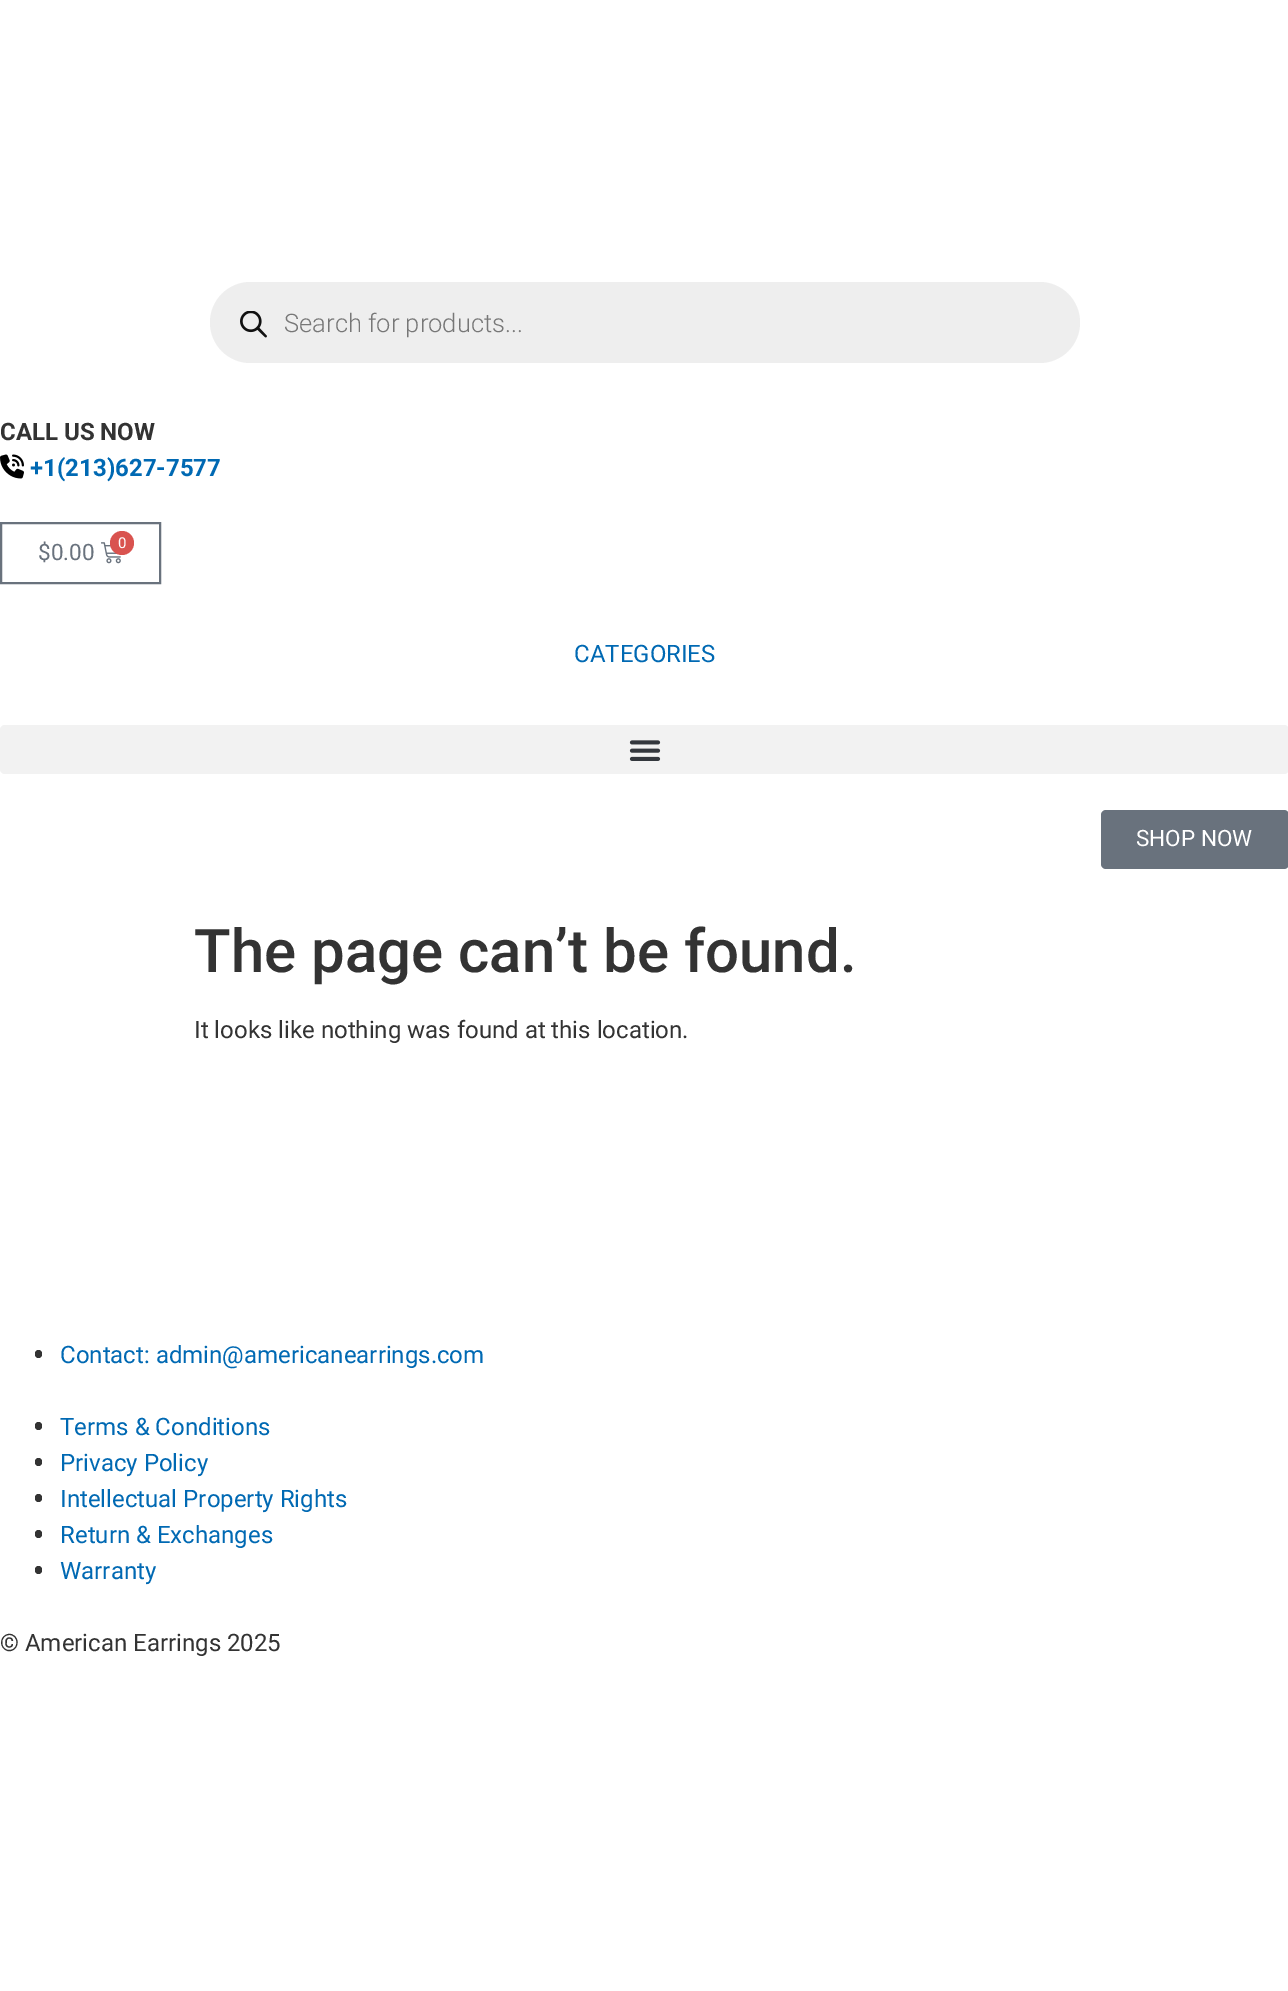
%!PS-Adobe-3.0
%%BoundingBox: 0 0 1288 1991
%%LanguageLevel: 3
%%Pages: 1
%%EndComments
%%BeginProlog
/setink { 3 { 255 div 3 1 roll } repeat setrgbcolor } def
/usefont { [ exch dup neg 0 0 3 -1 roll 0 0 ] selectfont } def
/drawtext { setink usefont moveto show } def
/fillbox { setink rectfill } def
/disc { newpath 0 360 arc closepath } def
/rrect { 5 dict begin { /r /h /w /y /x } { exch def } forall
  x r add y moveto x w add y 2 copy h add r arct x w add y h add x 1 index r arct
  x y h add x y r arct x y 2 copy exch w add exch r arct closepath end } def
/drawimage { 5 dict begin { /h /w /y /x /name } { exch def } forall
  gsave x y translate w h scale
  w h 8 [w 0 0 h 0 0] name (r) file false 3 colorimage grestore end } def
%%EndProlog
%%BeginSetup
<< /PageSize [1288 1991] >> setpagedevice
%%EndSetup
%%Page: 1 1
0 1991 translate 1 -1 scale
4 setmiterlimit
0 0 1288 1991 255 255 255 fillbox
238 238 238 setink
210 282 870 81 40.5 rrect fill
(assets/img1.rgb) 240 311 27 27 drawimage
(Search for products...) 284 332 /Roboto-Light 25.5 119 119 119 drawtext
(CALL US NOW) 0 440 /Roboto-Bold 24 51 51 51 drawtext
(assets/img2.rgb) 0 454 24 25 drawimage
(+1\(213\)627-7577) 30 476 /Roboto-Bold 24 0 105 179 drawtext
105 114 125 setink
2 setlinewidth
1 523 159 60 rectstroke
($0.00) 38 560 /Roboto-Regular 22.5 105 114 125 drawtext
(assets/img3.rgb) 101 542 20 22 drawimage
217 83 79 setink
122 543 12 disc fill
(0) 118 548 /Roboto-Regular 15 255 255 255 drawtext
(CATEGORIES) 574 662 /Roboto-Regular 24 0 105 179 drawtext
242 242 242 setink
0 725 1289 49 5 rrect fill
(assets/img4.rgb) 629 740 32 21 drawimage
105 114 125 setink
1101 810 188 59 5 rrect fill
(SHOP NOW) 1136 846 /Roboto-Regular 22.5 255 255 255 drawtext
(The page can’t be found.) 194 972 /Roboto-Medium 60 51 51 51 drawtext
(It looks like nothing was found at this location.) 194 1038 /Roboto-Regular 24 51 51 51 drawtext
35 1350 7 8 3.5 rrect fill
(Contact: admin@americanearrings.com) 60 1363 /Roboto-Regular 24 0 105 179 drawtext
51 51 51 setink
35 1422 7 8 3.5 rrect fill
(Terms & Conditions) 60 1435 /Roboto-Regular 24 0 105 179 drawtext
51 51 51 setink
35 1458 7 8 3.5 rrect fill
(Privacy Policy) 60 1471 /Roboto-Regular 24 0 105 179 drawtext
51 51 51 setink
35 1494 7 8 3.5 rrect fill
(Intellectual Property Rights) 60 1507 /Roboto-Regular 24 0 105 179 drawtext
51 51 51 setink
35 1530 7 8 3.5 rrect fill
(Return & Exchanges) 60 1543 /Roboto-Regular 24 0 105 179 drawtext
51 51 51 setink
35 1566 7 8 3.5 rrect fill
(Warranty) 60 1579 /Roboto-Regular 24 0 105 179 drawtext
(© American Earrings 2025) 0 1651 /Roboto-Regular 24 51 51 51 drawtext
showpage
%%EOF
